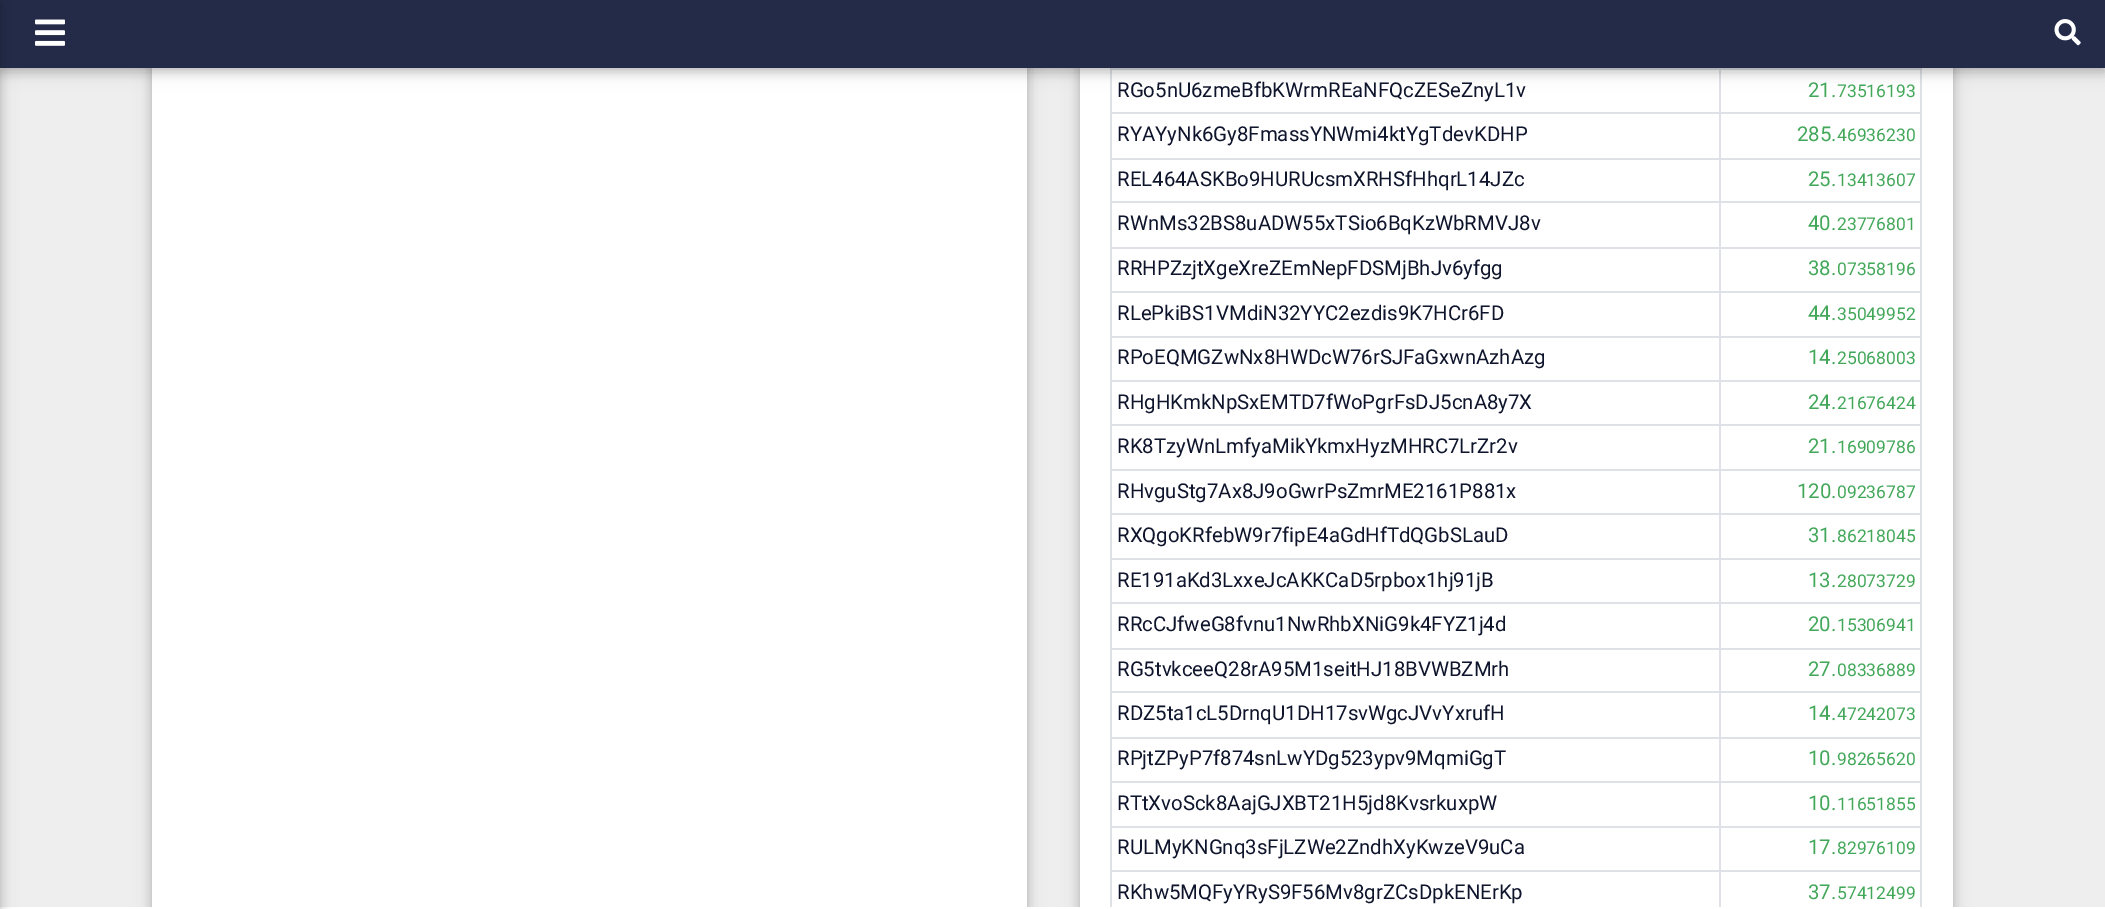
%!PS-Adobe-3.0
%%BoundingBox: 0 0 2105 909
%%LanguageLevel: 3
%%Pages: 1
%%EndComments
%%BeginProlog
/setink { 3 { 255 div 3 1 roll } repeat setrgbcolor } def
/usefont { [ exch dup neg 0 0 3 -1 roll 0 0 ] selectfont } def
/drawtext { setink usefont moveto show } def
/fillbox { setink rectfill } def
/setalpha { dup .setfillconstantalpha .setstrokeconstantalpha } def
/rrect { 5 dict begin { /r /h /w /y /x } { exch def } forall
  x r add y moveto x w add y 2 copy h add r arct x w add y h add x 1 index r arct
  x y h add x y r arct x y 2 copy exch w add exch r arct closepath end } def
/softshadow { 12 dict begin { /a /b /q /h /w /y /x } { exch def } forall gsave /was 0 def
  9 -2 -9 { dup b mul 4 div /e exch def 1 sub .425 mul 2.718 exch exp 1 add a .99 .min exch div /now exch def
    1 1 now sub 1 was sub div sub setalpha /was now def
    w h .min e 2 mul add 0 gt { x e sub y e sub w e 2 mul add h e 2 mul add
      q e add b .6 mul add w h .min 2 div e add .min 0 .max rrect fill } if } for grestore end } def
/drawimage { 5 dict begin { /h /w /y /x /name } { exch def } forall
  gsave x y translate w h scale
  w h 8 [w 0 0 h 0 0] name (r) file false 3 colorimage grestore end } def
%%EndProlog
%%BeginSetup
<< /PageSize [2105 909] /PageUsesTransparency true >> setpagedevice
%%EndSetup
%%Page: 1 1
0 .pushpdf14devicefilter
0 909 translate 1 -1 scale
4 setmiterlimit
0 0 2105 909 238 238 238 fillbox
0 0 0 setink
152 -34 875 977 7 9 0.12 softshadow
152 -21 875 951 7 4.5 0.16 softshadow
152 68 875 839 255 255 255 fillbox
0 0 0 setink
1080 -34 873 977 7 9 0.12 softshadow
1080 -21 873 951 7 4.5 0.16 softshadow
1080 68 873 839 255 255 255 fillbox
1920 70 2 839 222 226 230 fillbox
1110 70 2 839 222 226 230 fillbox
1719 68 203 2 222 226 230 fillbox
1719 112 203 2 222 226 230 fillbox
1719 158 203 2 222 226 230 fillbox
1719 201 203 2 222 226 230 fillbox
1719 247 203 2 222 226 230 fillbox
1719 291 203 2 222 226 230 fillbox
1719 336 203 2 222 226 230 fillbox
1719 380 203 2 222 226 230 fillbox
1719 424 203 2 222 226 230 fillbox
1719 469 203 2 222 226 230 fillbox
1719 513 203 2 222 226 230 fillbox
1719 558 203 2 222 226 230 fillbox
1719 602 203 2 222 226 230 fillbox
1719 648 203 2 222 226 230 fillbox
1719 691 203 2 222 226 230 fillbox
1719 737 203 2 222 226 230 fillbox
1719 781 203 2 222 226 230 fillbox
1719 826 203 2 222 226 230 fillbox
1719 870 203 2 222 226 230 fillbox
1719 870 2 39 222 226 230 fillbox
1110 870 610 2 222 226 230 fillbox
1719 826 2 46 222 226 230 fillbox
1110 826 610 2 222 226 230 fillbox
1719 781 2 47 222 226 230 fillbox
1110 781 610 2 222 226 230 fillbox
1719 737 2 45 222 226 230 fillbox
1110 737 610 2 222 226 230 fillbox
1719 691 2 48 222 226 230 fillbox
1110 691 610 2 222 226 230 fillbox
1719 648 2 45 222 226 230 fillbox
1110 648 610 2 222 226 230 fillbox
1719 602 2 47 222 226 230 fillbox
1110 602 610 2 222 226 230 fillbox
1719 558 2 46 222 226 230 fillbox
1110 558 610 2 222 226 230 fillbox
1719 513 2 47 222 226 230 fillbox
1110 513 610 2 222 226 230 fillbox
1719 469 2 46 222 226 230 fillbox
1110 469 610 2 222 226 230 fillbox
1719 424 2 47 222 226 230 fillbox
1110 424 610 2 222 226 230 fillbox
1719 380 2 45 222 226 230 fillbox
1110 380 610 2 222 226 230 fillbox
1719 336 2 46 222 226 230 fillbox
1110 336 610 2 222 226 230 fillbox
1719 291 2 47 222 226 230 fillbox
1110 291 610 2 222 226 230 fillbox
1719 247 2 45 222 226 230 fillbox
1110 247 610 2 222 226 230 fillbox
1719 201 2 48 222 226 230 fillbox
1110 201 610 2 222 226 230 fillbox
1719 158 2 45 222 226 230 fillbox
1110 158 610 2 222 226 230 fillbox
1719 112 2 47 222 226 230 fillbox
1110 112 610 2 222 226 230 fillbox
1719 68 2 46 222 226 230 fillbox
1110 68 610 2 222 226 230 fillbox
0 0 0 setink
0 4 2105 68 0 9 0.12 softshadow
0 4 2105 68 0 4.5 0.16 softshadow
0 0 2105 68 35 43 73 fillbox
0 907 2105 2 255 255 255 fillbox
0 0 0 setink
-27 4 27 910 0 9 0.12 softshadow
-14 4 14 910 0 4.5 0.16 softshadow
(assets/img1.rgb) 35 19 30 27 drawimage
(assets/img2.rgb) 2054 19 27 27 drawimage
(RGo5nU6zmeBfbKWrmREaNFQcZESeZnyL1v) 1117 97 /Roboto-Regular 20.4 14 20 43 drawtext
(21.) 1808 97 /Roboto-Regular 20.4 66 167 89 drawtext
(73516193) 1837 97 /Roboto-Regular 17.5 66 167 89 drawtext
(RYAYyNk6Gy8FmassYNWmi4ktYgTdevKDHP) 1117 141 /Roboto-Regular 20.4 14 20 43 drawtext
(285.) 1797 141 /Roboto-Regular 20.4 66 167 89 drawtext
(46936230) 1837 141 /Roboto-Regular 17.5 66 167 89 drawtext
(REL464ASKBo9HURUcsmXRHSfHhqrL14JZc) 1117 186 /Roboto-Regular 20.4 14 20 43 drawtext
(25.) 1808 186 /Roboto-Regular 20.4 66 167 89 drawtext
(13413607) 1837 186 /Roboto-Regular 17.5 66 167 89 drawtext
(RWnMs32BS8uADW55xTSio6BqKzWbRMVJ8v) 1117 230 /Roboto-Regular 20.4 14 20 43 drawtext
(40.) 1808 230 /Roboto-Regular 20.4 66 167 89 drawtext
(23776801) 1837 230 /Roboto-Regular 17.5 66 167 89 drawtext
(RRHPZzjtXgeXreZEmNepFDSMjBhJv6yfgg) 1117 275 /Roboto-Regular 20.4 14 20 43 drawtext
(38.) 1808 275 /Roboto-Regular 20.4 66 167 89 drawtext
(07358196) 1837 275 /Roboto-Regular 17.5 66 167 89 drawtext
(RLePkiBS1VMdiN32YYC2ezdis9K7HCr6FD) 1117 320 /Roboto-Regular 20.4 14 20 43 drawtext
(44.) 1808 320 /Roboto-Regular 20.4 66 167 89 drawtext
(35049952) 1837 320 /Roboto-Regular 17.5 66 167 89 drawtext
(RPoEQMGZwNx8HWDcW76rSJFaGxwnAzhAzg) 1117 364 /Roboto-Regular 20.4 14 20 43 drawtext
(14.) 1808 364 /Roboto-Regular 20.4 66 167 89 drawtext
(25068003) 1837 364 /Roboto-Regular 17.5 66 167 89 drawtext
(RHgHKmkNpSxEMTD7fWoPgrFsDJ5cnA8y7X) 1117 409 /Roboto-Regular 20.4 14 20 43 drawtext
(24.) 1808 409 /Roboto-Regular 20.4 66 167 89 drawtext
(21676424) 1837 409 /Roboto-Regular 17.5 66 167 89 drawtext
(RK8TzyWnLmfyaMikYkmxHyzMHRC7LrZr2v) 1117 453 /Roboto-Regular 20.4 14 20 43 drawtext
(21.) 1808 453 /Roboto-Regular 20.4 66 167 89 drawtext
(16909786) 1837 453 /Roboto-Regular 17.5 66 167 89 drawtext
(RHvguStg7Ax8J9oGwrPsZmrME2161P881x) 1117 498 /Roboto-Regular 20.4 14 20 43 drawtext
(120.) 1797 498 /Roboto-Regular 20.4 66 167 89 drawtext
(09236787) 1837 498 /Roboto-Regular 17.5 66 167 89 drawtext
(RXQgoKRfebW9r7fipE4aGdHfTdQGbSLauD) 1117 542 /Roboto-Regular 20.4 14 20 43 drawtext
(31.) 1808 542 /Roboto-Regular 20.4 66 167 89 drawtext
(86218045) 1837 542 /Roboto-Regular 17.5 66 167 89 drawtext
(RE191aKd3LxxeJcAKKCaD5rpbox1hj91jB) 1117 587 /Roboto-Regular 20.4 14 20 43 drawtext
(13.) 1808 587 /Roboto-Regular 20.4 66 167 89 drawtext
(28073729) 1837 587 /Roboto-Regular 17.5 66 167 89 drawtext
(RRcCJfweG8fvnu1NwRhbXNiG9k4FYZ1j4d) 1117 631 /Roboto-Regular 20.4 14 20 43 drawtext
(20.) 1808 631 /Roboto-Regular 20.4 66 167 89 drawtext
(15306941) 1837 631 /Roboto-Regular 17.5 66 167 89 drawtext
(RG5tvkceeQ28rA95M1seitHJ18BVWBZMrh) 1117 676 /Roboto-Regular 20.4 14 20 43 drawtext
(27.) 1808 676 /Roboto-Regular 20.4 66 167 89 drawtext
(08336889) 1837 676 /Roboto-Regular 17.5 66 167 89 drawtext
(RDZ5ta1cL5DrnqU1DH17svWgcJVvYxrufH) 1117 720 /Roboto-Regular 20.4 14 20 43 drawtext
(14.) 1808 720 /Roboto-Regular 20.4 66 167 89 drawtext
(47242073) 1837 720 /Roboto-Regular 17.5 66 167 89 drawtext
(RPjtZPyP7f874snLwYDg523ypv9MqmiGgT) 1117 765 /Roboto-Regular 20.4 14 20 43 drawtext
(10.) 1808 765 /Roboto-Regular 20.4 66 167 89 drawtext
(98265620) 1837 765 /Roboto-Regular 17.5 66 167 89 drawtext
(RTtXvoSck8AajGJXBT21H5jd8KvsrkuxpW) 1117 810 /Roboto-Regular 20.4 14 20 43 drawtext
(10.) 1808 810 /Roboto-Regular 20.4 66 167 89 drawtext
(11651855) 1837 810 /Roboto-Regular 17.5 66 167 89 drawtext
(RULMyKNGnq3sFjLZWe2ZndhXyKwzeV9uCa) 1117 854 /Roboto-Regular 20.4 14 20 43 drawtext
(17.) 1808 854 /Roboto-Regular 20.4 66 167 89 drawtext
(82976109) 1837 854 /Roboto-Regular 17.5 66 167 89 drawtext
(RKhw5MQFyYRyS9F56Mv8grZCsDpkENErKp) 1117 899 /Roboto-Regular 20.4 14 20 43 drawtext
(37.) 1808 899 /Roboto-Regular 20.4 66 167 89 drawtext
(57412499) 1837 899 /Roboto-Regular 17.5 66 167 89 drawtext
.poppdf14devicefilter showpage
%%EOF
